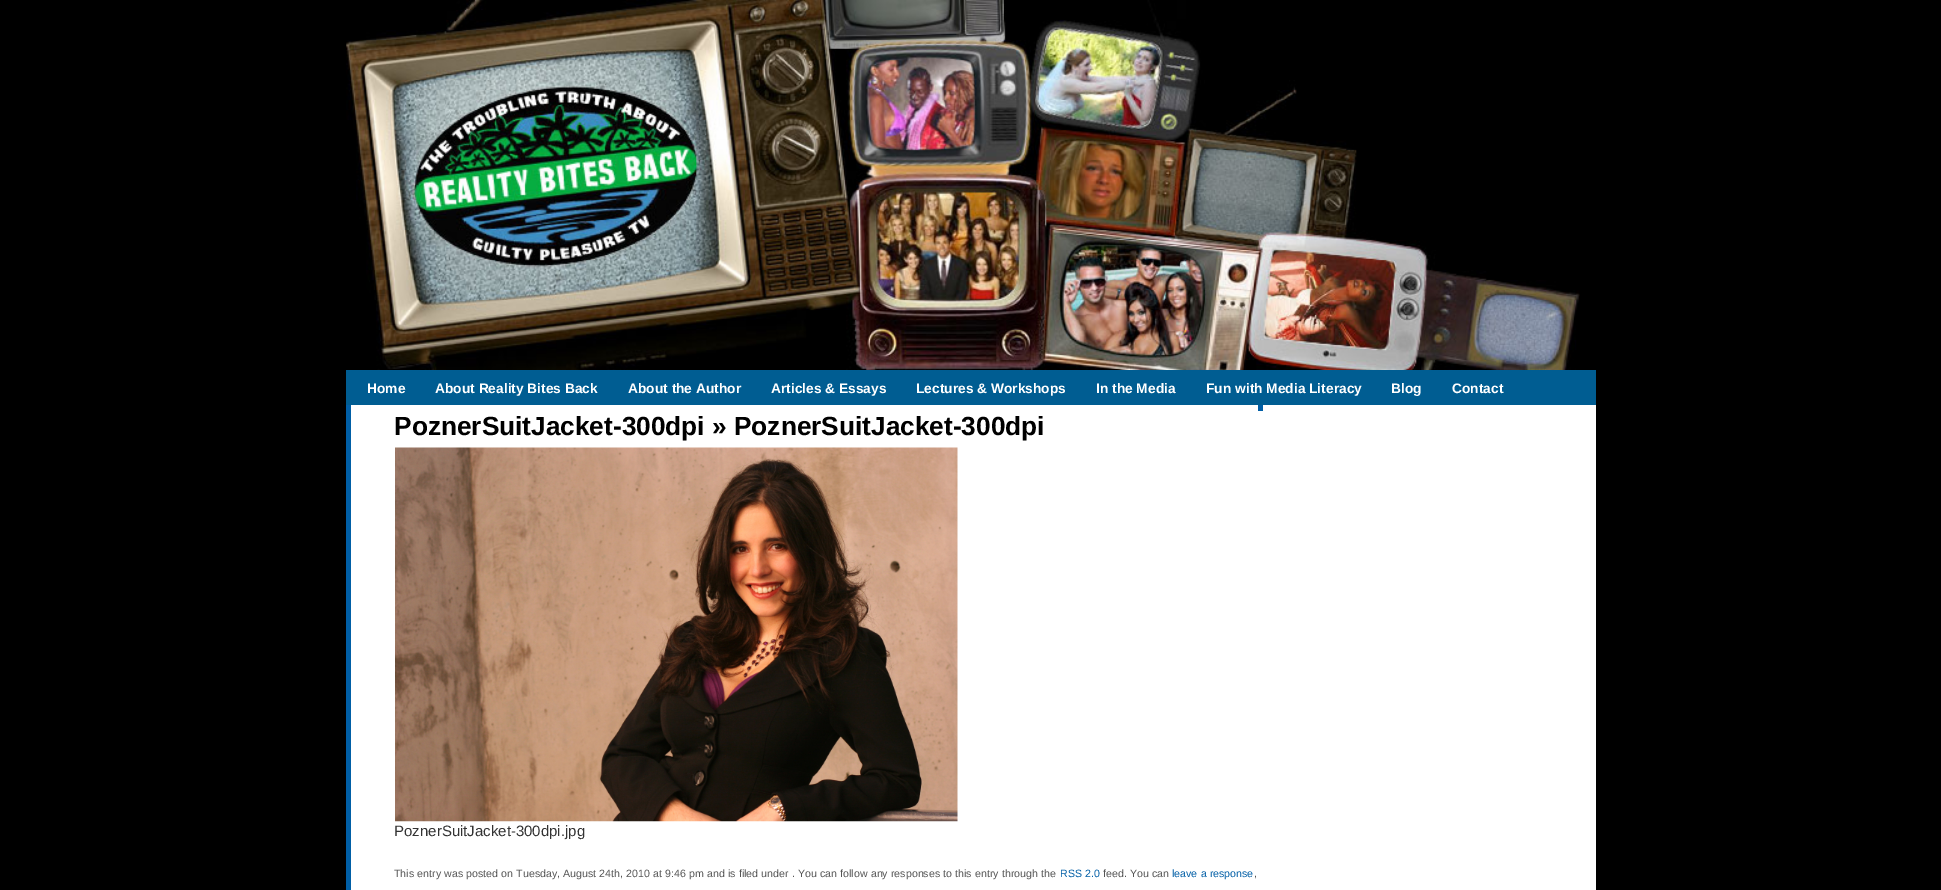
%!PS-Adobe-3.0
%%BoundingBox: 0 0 1941 890
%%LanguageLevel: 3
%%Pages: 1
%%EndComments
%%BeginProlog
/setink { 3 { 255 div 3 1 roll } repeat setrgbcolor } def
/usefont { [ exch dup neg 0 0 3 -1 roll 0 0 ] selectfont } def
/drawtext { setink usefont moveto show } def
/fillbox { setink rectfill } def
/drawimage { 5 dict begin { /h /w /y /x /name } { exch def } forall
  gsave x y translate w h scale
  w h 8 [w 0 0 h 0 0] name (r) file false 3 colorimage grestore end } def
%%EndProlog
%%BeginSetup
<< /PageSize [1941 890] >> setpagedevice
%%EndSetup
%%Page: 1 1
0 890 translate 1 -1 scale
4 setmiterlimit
0 0 1941 890 0 0 0 fillbox
(assets/img1.rgb) 346 0 1234 370 drawimage
346 370 1250 35 0 93 146 fillbox
(Home) 367 393 /LiberationSans-Bold 13.75 255 255 255 drawtext
(About Reality Bites Back) 435 393 /LiberationSans-Bold 13.75 255 255 255 drawtext
(About the Author) 628 393 /LiberationSans-Bold 13.75 255 255 255 drawtext
(Articles & Essays) 771 393 /LiberationSans-Bold 13.75 255 255 255 drawtext
(Lectures & Workshops) 916 393 /LiberationSans-Bold 13.75 255 255 255 drawtext
(In the Media) 1096 393 /LiberationSans-Bold 13.75 255 255 255 drawtext
(Fun with Media Literacy) 1206 393 /LiberationSans-Bold 13.75 255 255 255 drawtext
(Blog) 1391 393 /LiberationSans-Bold 13.75 255 255 255 drawtext
(Contact) 1452 393 /LiberationSans-Bold 13.75 255 255 255 drawtext
351 405 1245 485 255 255 255 fillbox
1258 405 5 6 0 94 166 fillbox
346 405 5 485 0 94 166 fillbox
(PoznerSuitJacket-300dpi » PoznerSuitJacket-300dpi) 394 435 /LiberationSans-Bold 26.25 0 0 0 drawtext
(assets/img2.rgb) 395 447 563 375 drawimage
(PoznerSuitJacket-300dpi.jpg) 394 836 /LiberationSans-Regular 15 51 51 51 drawtext
/LiberationSans-Regular 10.62 usefont
85 85 85 setink
394 877 moveto 0.25 0 32 (This entry was posted on Tuesday, August 24th, 2010 at 9:46 pm and is filed under . You can follow any responses to this entry through the) widthshow
(RSS 2.0) 1060 877 /LiberationSans-Regular 10.62 0 94 166 drawtext
(feed.) 1103 877 /LiberationSans-Regular 10.62 85 85 85 drawtext
1130 877 moveto 0.25 0 32 (You can) widthshow
0 94 166 setink
1172 877 moveto 0.25 0 32 (leave a response) widthshow
(,) 1254 877 /LiberationSans-Regular 10.62 85 85 85 drawtext
showpage
%%EOF
